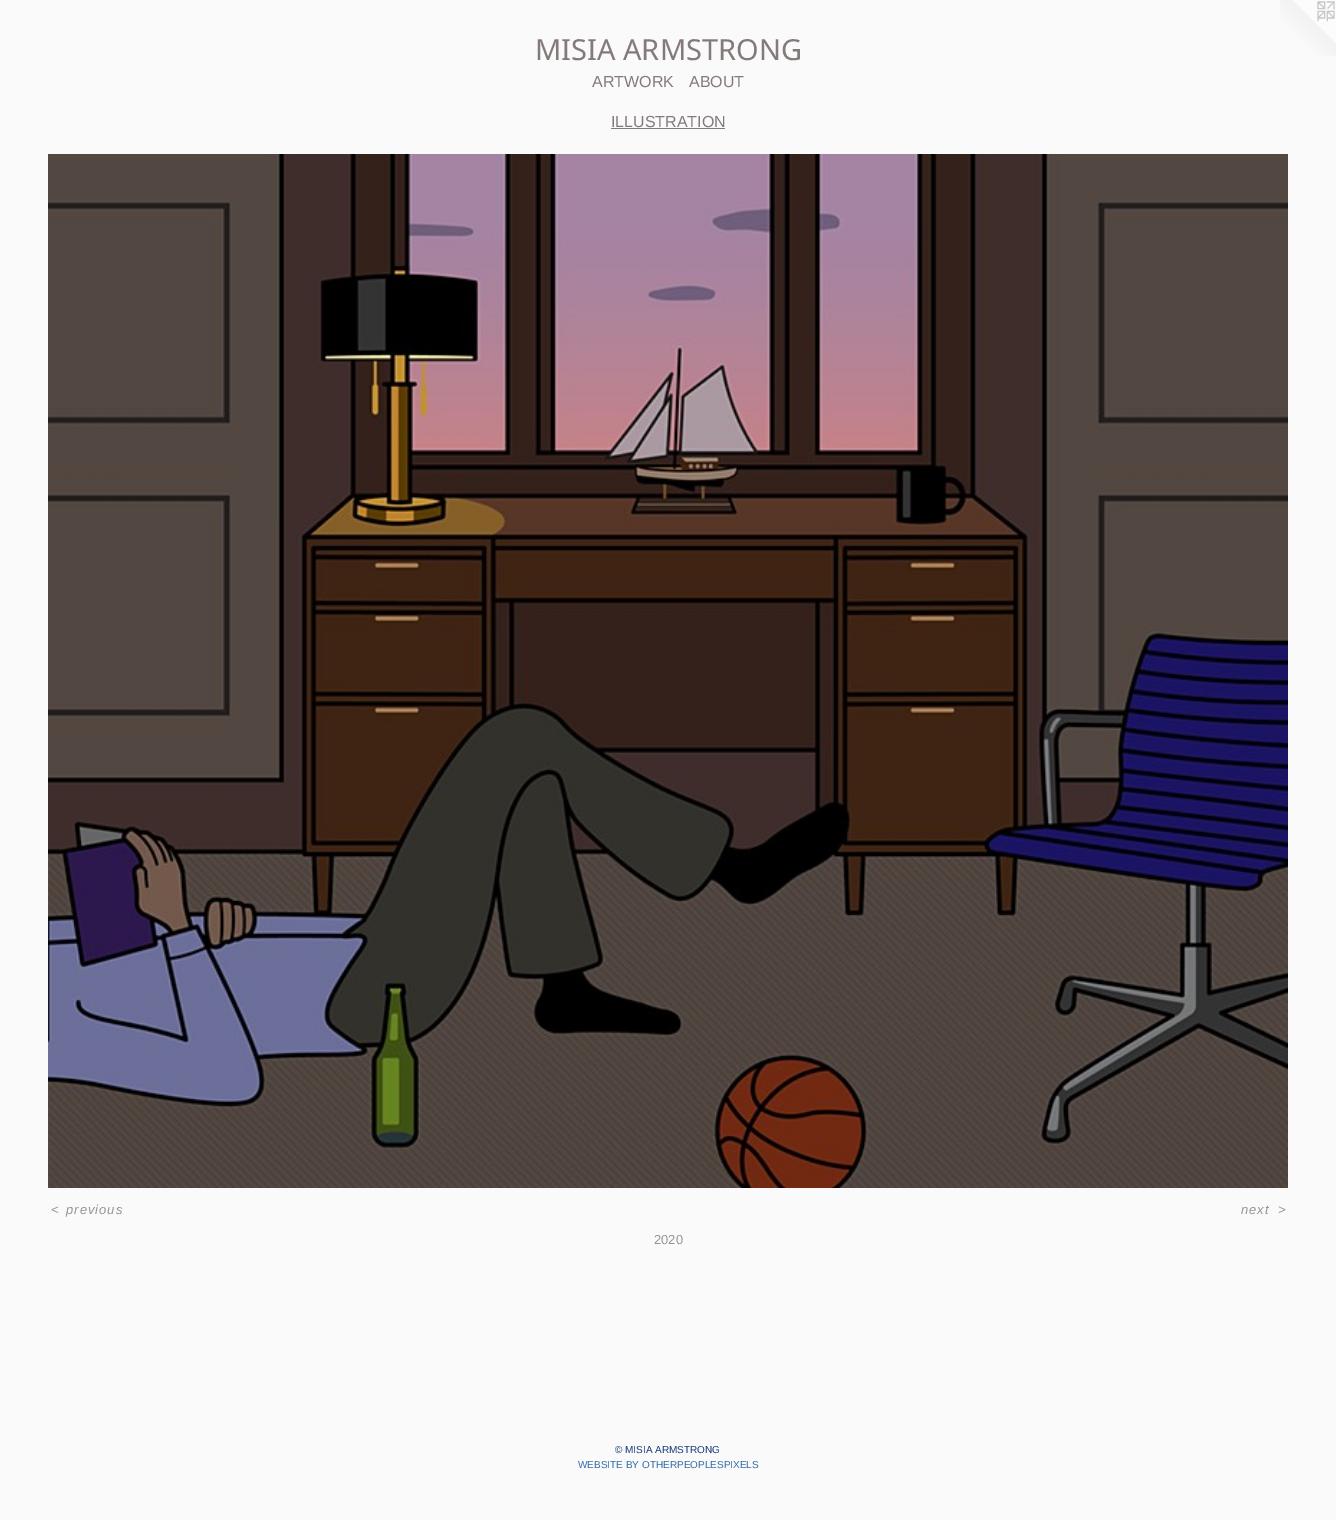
%!PS-Adobe-3.0
%%BoundingBox: 0 0 1336 1520
%%LanguageLevel: 3
%%Pages: 1
%%EndComments
%%BeginProlog
/setink { 3 { 255 div 3 1 roll } repeat setrgbcolor } def
/usefont { [ exch dup neg 0 0 3 -1 roll 0 0 ] selectfont } def
/drawtext { setink usefont moveto show } def
/fillbox { setink rectfill } def
/drawimage { 5 dict begin { /h /w /y /x /name } { exch def } forall
  gsave x y translate w h scale
  w h 8 [w 0 0 h 0 0] name (r) file false 3 colorimage grestore end } def
%%EndProlog
%%BeginSetup
<< /PageSize [1336 1520] >> setpagedevice
%%EndSetup
%%Page: 1 1
0 1520 translate 1 -1 scale
4 setmiterlimit
0 0 1336 1520 250 250 250 fillbox
(MISIA ARMSTRONG) 535 60 /NotoSans-Regular 29 133 122 122 drawtext
(assets/img1.rgb) 1280 0 56 56 drawimage
(ARTWORK) 592 87 /LiberationSans-Regular 16 133 122 122 drawtext
(ABOUT) 689 87 /LiberationSans-Regular 16 133 122 122 drawtext
(ILLUSTRATION) 611 127 /LiberationSans-Regular 16 133 122 122 drawtext
611 128 114 1 133 122 122 fillbox
(assets/img2.rgb) 48 154 1240 1034 drawimage
/LiberationSans-Italic 13 usefont
148 148 148 setink
51 1214 moveto 1 0 (<) ashow
66 1214 moveto 1 0 (previous) ashow
1241 1214 moveto 1 0 (next) ashow
1278 1214 moveto 1 0 (>) ashow
(2020) 654 1244 /LiberationSans-Regular 13 148 148 148 drawtext
(© MISIA ARMSTRONG) 615 1453 /LiberationSans-Regular 10 23 58 120 drawtext
(WEBSITE BY OTHERPEOPLESPIXELS) 578 1468 /LiberationSans-Regular 10 49 108 170 drawtext
showpage
%%EOF
